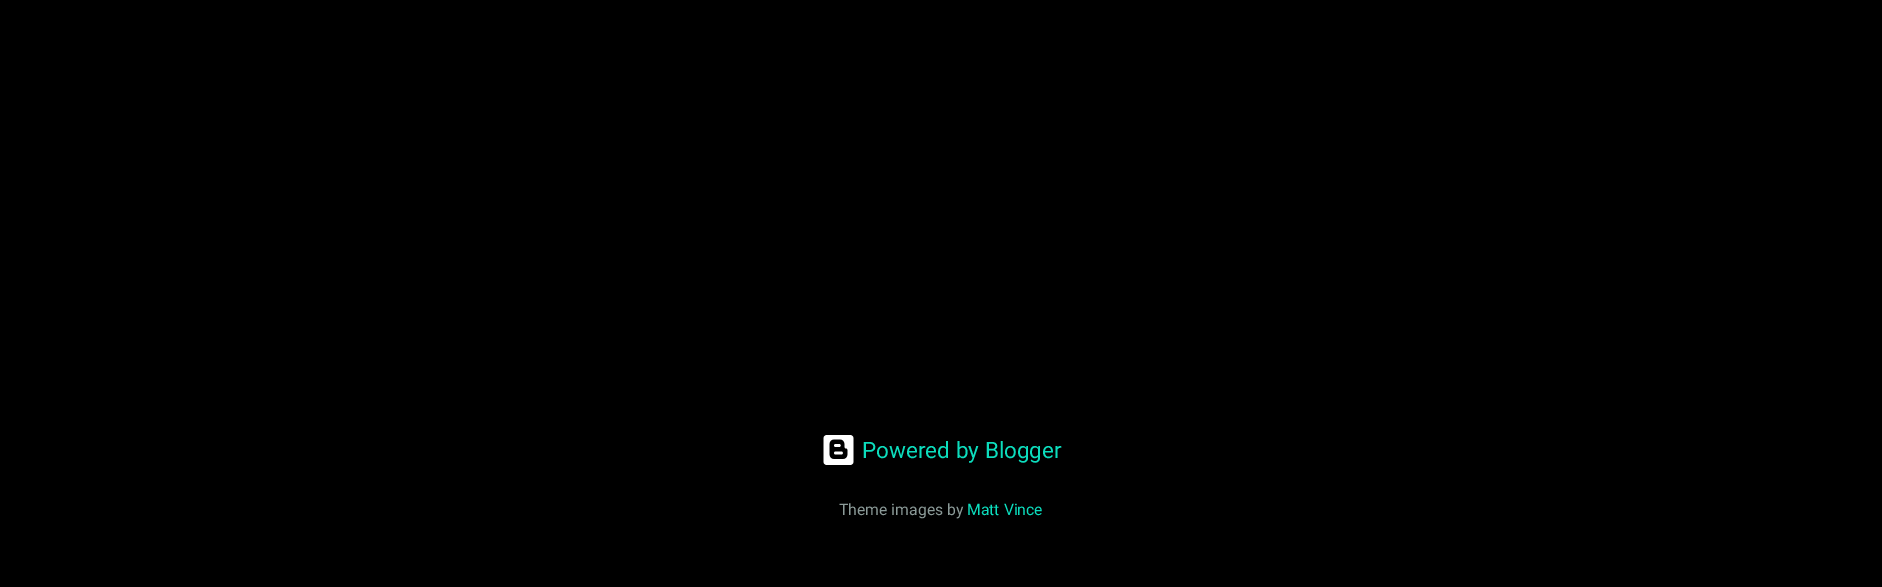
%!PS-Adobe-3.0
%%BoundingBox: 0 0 1882 587
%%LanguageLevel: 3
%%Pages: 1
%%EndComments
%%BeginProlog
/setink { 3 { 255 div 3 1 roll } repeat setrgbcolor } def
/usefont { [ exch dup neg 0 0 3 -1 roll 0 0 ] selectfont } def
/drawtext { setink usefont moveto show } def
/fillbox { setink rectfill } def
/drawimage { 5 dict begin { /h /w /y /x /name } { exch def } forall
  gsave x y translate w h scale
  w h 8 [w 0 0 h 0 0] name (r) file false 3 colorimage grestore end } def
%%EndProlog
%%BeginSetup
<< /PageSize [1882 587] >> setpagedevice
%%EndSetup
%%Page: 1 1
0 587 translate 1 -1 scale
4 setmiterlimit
0 0 1882 587 0 0 0 fillbox
(assets/img1.rgb) 823 435 31 30 drawimage
(Powered by Blogger) 862 458 /Roboto-Regular 22.5 12 221 189 drawtext
(Theme images by) 839 515 /Roboto-Regular 15.75 139 154 152 drawtext
(Matt Vince) 967 515 /Roboto-Regular 15.75 12 221 189 drawtext
showpage
%%EOF
